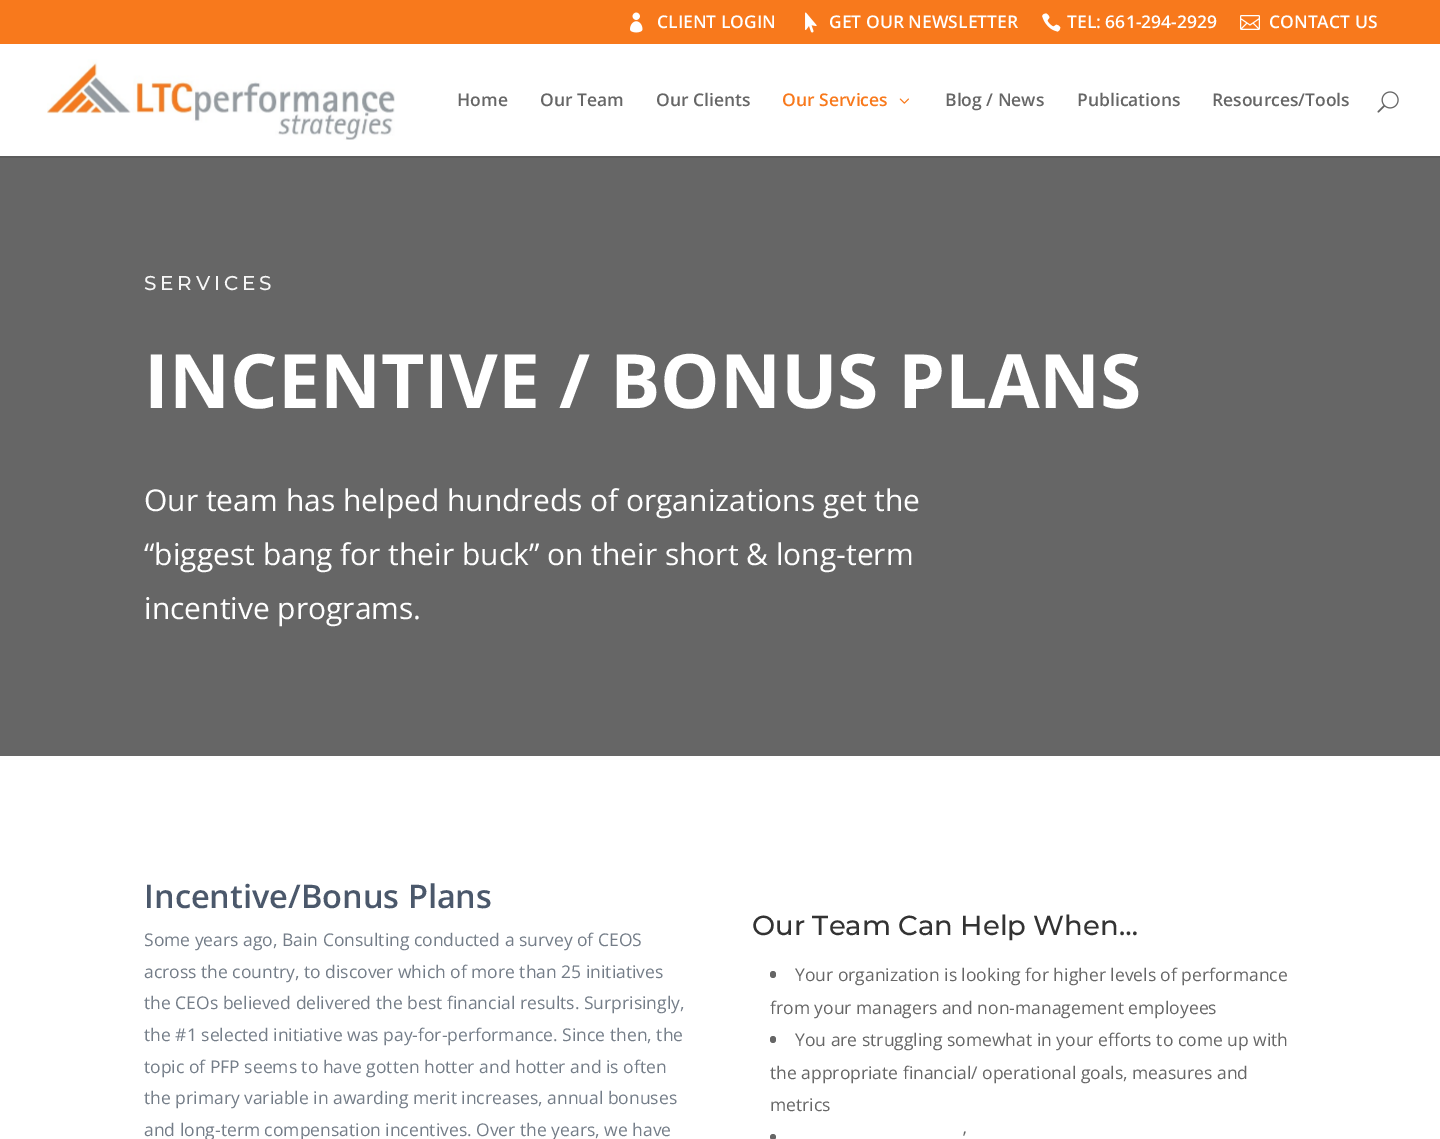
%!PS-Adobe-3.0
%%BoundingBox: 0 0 1440 1139
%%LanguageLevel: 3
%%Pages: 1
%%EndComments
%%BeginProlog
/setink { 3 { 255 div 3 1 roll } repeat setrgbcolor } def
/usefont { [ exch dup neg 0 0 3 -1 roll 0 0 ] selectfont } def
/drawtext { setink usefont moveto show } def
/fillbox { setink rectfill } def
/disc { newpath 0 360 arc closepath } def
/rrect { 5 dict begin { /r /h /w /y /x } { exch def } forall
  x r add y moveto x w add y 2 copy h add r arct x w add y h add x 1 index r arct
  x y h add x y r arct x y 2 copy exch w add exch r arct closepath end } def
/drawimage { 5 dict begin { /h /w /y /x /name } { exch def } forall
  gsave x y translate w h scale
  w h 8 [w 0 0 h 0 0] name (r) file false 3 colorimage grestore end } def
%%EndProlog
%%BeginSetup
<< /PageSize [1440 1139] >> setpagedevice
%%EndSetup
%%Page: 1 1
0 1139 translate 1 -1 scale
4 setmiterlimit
0 0 1440 1139 102 102 102 fillbox
0 0 1440 44 248 121 28 fillbox
(assets/img1.rgb) 630 12 13 21 drawimage
(CLIENT LOGIN) 657 28 /OpenSans-SemiBold 17.5 255 255 255 drawtext
(assets/img2.rgb) 805 12 12 21 drawimage
(GET OUR NEWSLETTER) 829 28 /OpenSans-SemiBold 17.5 255 255 255 drawtext
(assets/img3.rgb) 1042 13 19 19 drawimage
(TEL: 661-294-2929) 1067 28 /OpenSans-SemiBold 17.5 255 255 255 drawtext
(assets/img4.rgb) 1240 15 20 15 drawimage
(CONTACT US) 1269 28 /OpenSans-SemiBold 17.5 255 255 255 drawtext
0 156 1440 2 92 92 92 fillbox
0 44 1440 112 255 255 255 fillbox
(assets/img5.rgb) 47 59 348 81 drawimage
(Home) 457 106 /OpenSans-SemiBold 17.5 102 102 102 drawtext
(Our Team) 540 106 /OpenSans-SemiBold 17.5 102 102 102 drawtext
(Our Clients) 656 106 /OpenSans-SemiBold 17.5 102 102 102 drawtext
(Our Services) 782 106 /OpenSans-SemiBold 17.5 248 121 28 drawtext
(assets/img6.rgb) 899 98 10 6 drawimage
(Blog / News) 945 106 /OpenSans-SemiBold 17.5 102 102 102 drawtext
(Publications) 1077 106 /OpenSans-SemiBold 17.5 102 102 102 drawtext
(Resources/Tools) 1212 106 /OpenSans-SemiBold 17.5 102 102 102 drawtext
(assets/img7.rgb) 1377 91 22 22 drawimage
/Montserrat-Medium 20 usefont
247 247 247 setink
144 290 moveto 3.75 0 (SERVICES) ashow
(INCENTIVE / BONUS PLANS) 144 408 /OpenSans-Bold 75 255 255 255 drawtext
(Our team has helped hundreds of organizations get the) 144 511 /OpenSans-Regular 30 255 255 255 drawtext
(“biggest bang for their buck” on their short & long-term) 144 565 /OpenSans-Regular 30 255 255 255 drawtext
(incentive programs.) 144 619 /OpenSans-Regular 30 255 255 255 drawtext
0 756 1440 383 255 255 255 fillbox
(Incentive/Bonus Plans) 144 908 /OpenSans-SemiBold 32.5 75 88 107 drawtext
(Some years ago, Bain Consulting conducted a survey of CEOS) 144 946 /OpenSans-Regular 17.5 116 125 136 drawtext
(across the country, to discover which of more than 25 initiatives) 144 978 /OpenSans-Regular 17.5 116 125 136 drawtext
(the CEOs believed delivered the best financial results. Surprisingly,) 144 1009 /OpenSans-Regular 17.5 116 125 136 drawtext
(the #1 selected initiative was pay-for-performance. Since then, the) 144 1041 /OpenSans-Regular 17.5 116 125 136 drawtext
(topic of PFP seems to have gotten hotter and hotter and is often) 144 1073 /OpenSans-Regular 17.5 116 125 136 drawtext
(the primary variable in awarding merit increases, annual bonuses) 144 1104 /OpenSans-Regular 17.5 116 125 136 drawtext
(and long-term compensation incentives. Over the years, we have) 144 1136 /OpenSans-Regular 17.5 116 125 136 drawtext
(Our Team Can Help When…) 752 935 /Montserrat-Medium 27.5 51 51 51 drawtext
102 102 102 setink
770 971 6 7 3 rrect fill
(Your organization is looking for higher levels of performance) 795 981 /OpenSans-Regular 17.5 102 102 102 drawtext
(from your managers and non-management employees) 770 1014 /OpenSans-Regular 17.5 102 102 102 drawtext
770 1036 6 7 3 rrect fill
(You are struggling somewhat in your efforts to come up with) 795 1046 /OpenSans-Regular 17.5 102 102 102 drawtext
(the appropriate financial/ operational goals, measures and) 770 1079 /OpenSans-Regular 17.5 102 102 102 drawtext
(metrics) 770 1111 /OpenSans-Regular 17.5 102 102 102 drawtext
(’) 963 1144 /OpenSans-Regular 17.5 102 102 102 drawtext
773 1137 3 disc fill
showpage
%%EOF
